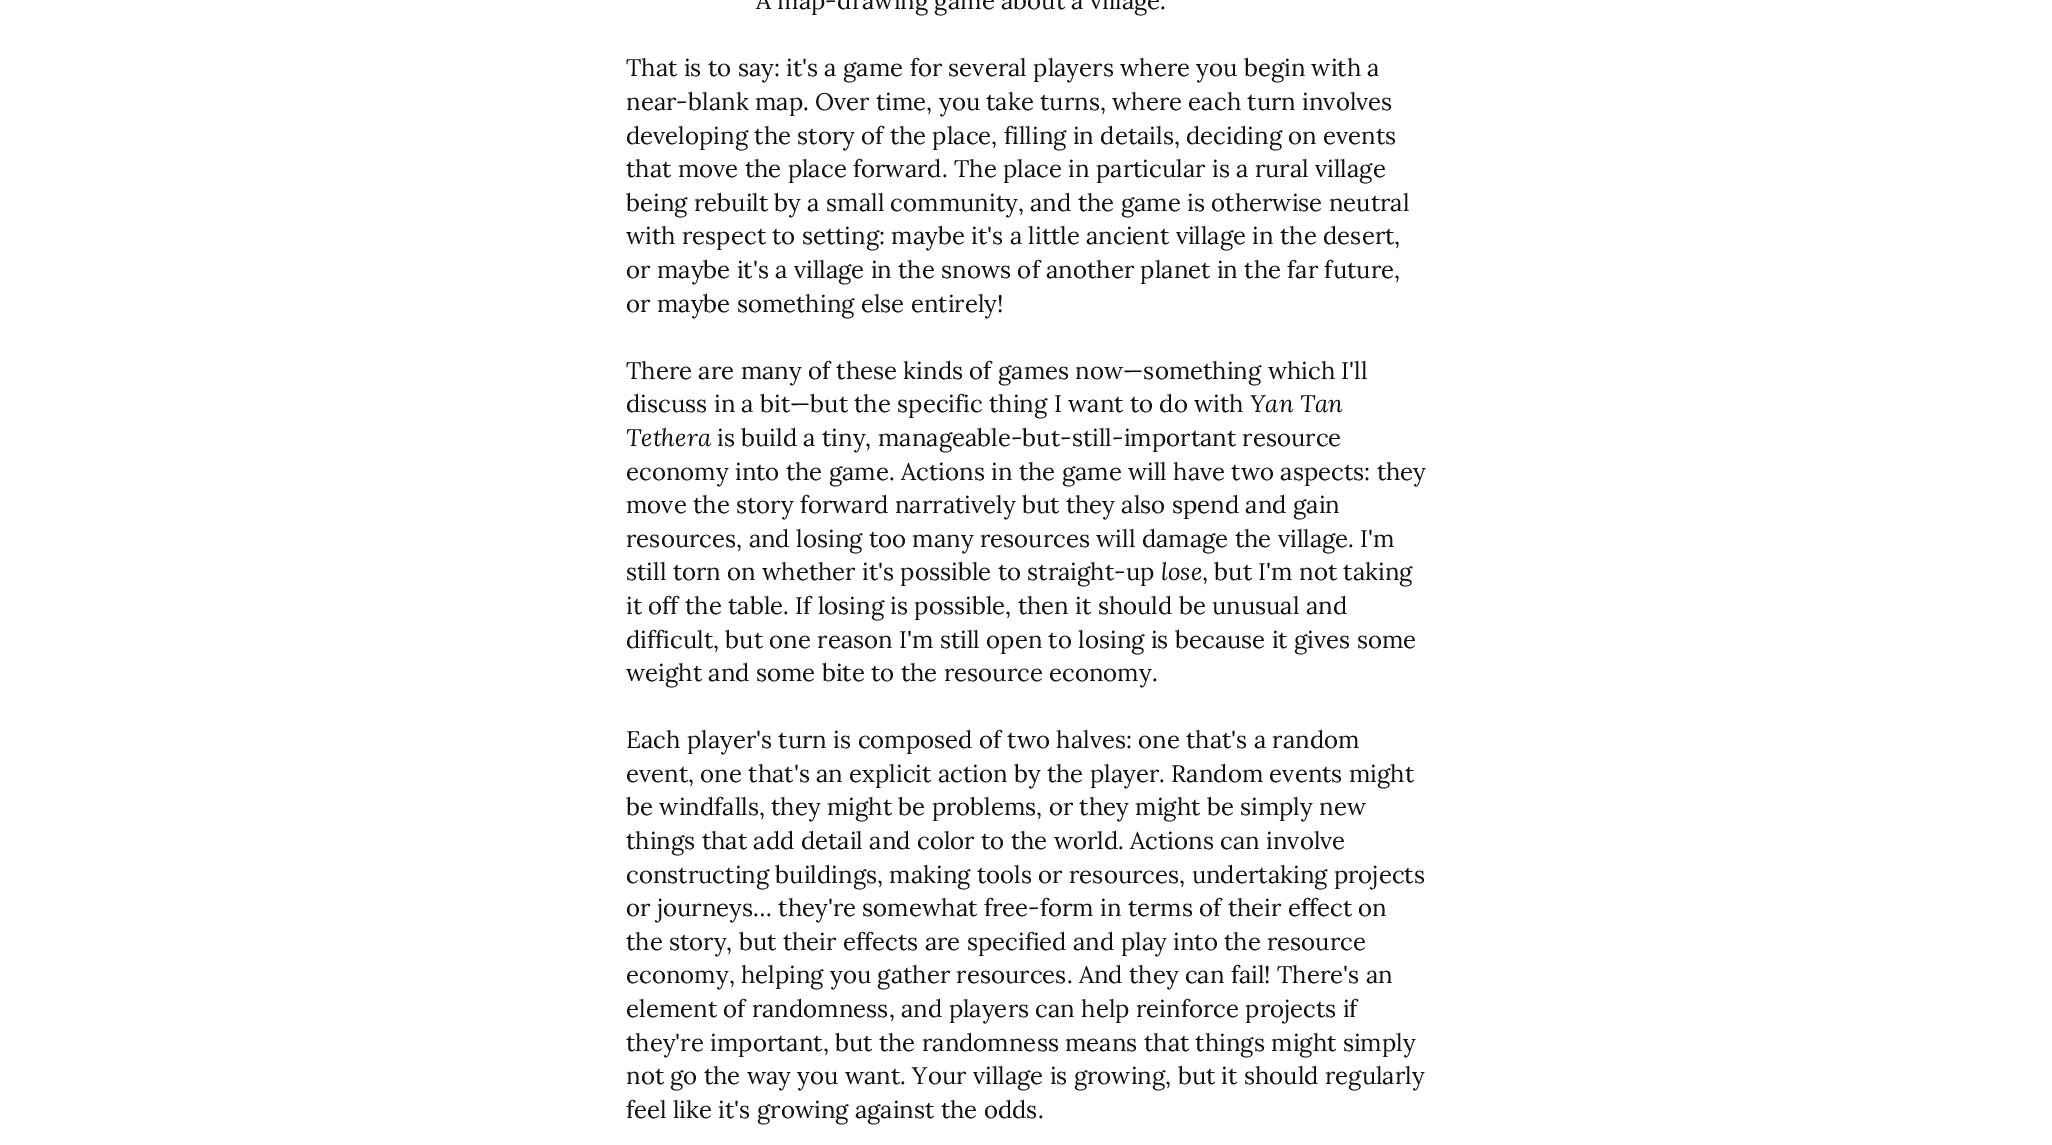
%!PS-Adobe-3.0
%%BoundingBox: 0 0 2052 1145
%%LanguageLevel: 3
%%Pages: 1
%%EndComments
%%BeginProlog
/setink { 3 { 255 div 3 1 roll } repeat setrgbcolor } def
/usefont { [ exch dup neg 0 0 3 -1 roll 0 0 ] selectfont } def
/drawtext { setink usefont moveto show } def
/fillbox { setink rectfill } def
%%EndProlog
%%BeginSetup
<< /PageSize [2052 1145] >> setpagedevice
%%EndSetup
%%Page: 1 1
0 1145 translate 1 -1 scale
4 setmiterlimit
0 0 2052 1145 255 255 255 fillbox
(A map-drawing game about a village.) 756 9 /Lora-Regular 24 17 17 17 drawtext
(That is to say: it's a game for several players where you begin with a) 626 76 /Lora-Regular 24 17 17 17 drawtext
(near-blank map. Over time, you take turns, where each turn involves) 626 110 /Lora-Regular 24 17 17 17 drawtext
(developing the story of the place, filling in details, deciding on events) 626 144 /Lora-Regular 24 17 17 17 drawtext
(that move the place forward. The place in particular is a rural village) 626 177 /Lora-Regular 24 17 17 17 drawtext
(being rebuilt by a small community, and the game is otherwise neutral) 626 211 /Lora-Regular 24 17 17 17 drawtext
(with respect to setting: maybe it's a little ancient village in the desert,) 626 244 /Lora-Regular 24 17 17 17 drawtext
(or maybe it's a village in the snows of another planet in the far future,) 626 278 /Lora-Regular 24 17 17 17 drawtext
(or maybe something else entirely!) 626 312 /Lora-Regular 24 17 17 17 drawtext
(There are many of these kinds of games now—something which I'll) 626 379 /Lora-Regular 24 17 17 17 drawtext
(discuss in a bit—but the specific thing I want to do with) 626 412 /Lora-Regular 24 17 17 17 drawtext
(Yan Tan) 1250 412 /Lora-Italic 24 17 17 17 drawtext
(Tethera) 626 446 /Lora-Italic 24 17 17 17 drawtext
(is build a tiny, manageable-but-still-important resource) 717 446 /Lora-Regular 24 17 17 17 drawtext
(economy into the game. Actions in the game will have two aspects: they) 626 480 /Lora-Regular 24 17 17 17 drawtext
(move the story forward narratively but they also spend and gain) 626 513 /Lora-Regular 24 17 17 17 drawtext
(resources, and losing too many resources will damage the village. I'm) 626 547 /Lora-Regular 24 17 17 17 drawtext
(still torn on whether it's possible to straight-up) 626 580 /Lora-Regular 24 17 17 17 drawtext
(lose) 1161 580 /Lora-Italic 24 17 17 17 drawtext
(, but I'm not taking) 1202 580 /Lora-Regular 24 17 17 17 drawtext
(it off the table. If losing is possible, then it should be unusual and) 626 614 /Lora-Regular 24 17 17 17 drawtext
(difficult, but one reason I'm still open to losing is because it gives some) 626 648 /Lora-Regular 24 17 17 17 drawtext
(weight and some bite to the resource economy.) 626 681 /Lora-Regular 24 17 17 17 drawtext
(Each player's turn is composed of two halves: one that's a random) 626 748 /Lora-Regular 24 17 17 17 drawtext
(event, one that's an explicit action by the player. Random events might) 626 782 /Lora-Regular 24 17 17 17 drawtext
(be windfalls, they might be problems, or they might be simply new) 626 815 /Lora-Regular 24 17 17 17 drawtext
(things that add detail and color to the world. Actions can involve) 626 849 /Lora-Regular 24 17 17 17 drawtext
(constructing buildings, making tools or resources, undertaking projects) 626 883 /Lora-Regular 24 17 17 17 drawtext
(or journeys… they're somewhat free-form in terms of their effect on) 626 916 /Lora-Regular 24 17 17 17 drawtext
(the story, but their effects are specified and play into the resource) 626 950 /Lora-Regular 24 17 17 17 drawtext
(economy, helping you gather resources. And they can fail! There's an) 626 983 /Lora-Regular 24 17 17 17 drawtext
(element of randomness, and players can help reinforce projects if) 626 1017 /Lora-Regular 24 17 17 17 drawtext
(they're important, but the randomness means that things might simply) 626 1051 /Lora-Regular 24 17 17 17 drawtext
(not go the way you want. Your village is growing, but it should regularly) 626 1084 /Lora-Regular 24 17 17 17 drawtext
(feel like it's growing against the odds.) 626 1118 /Lora-Regular 24 17 17 17 drawtext
showpage
%%EOF
